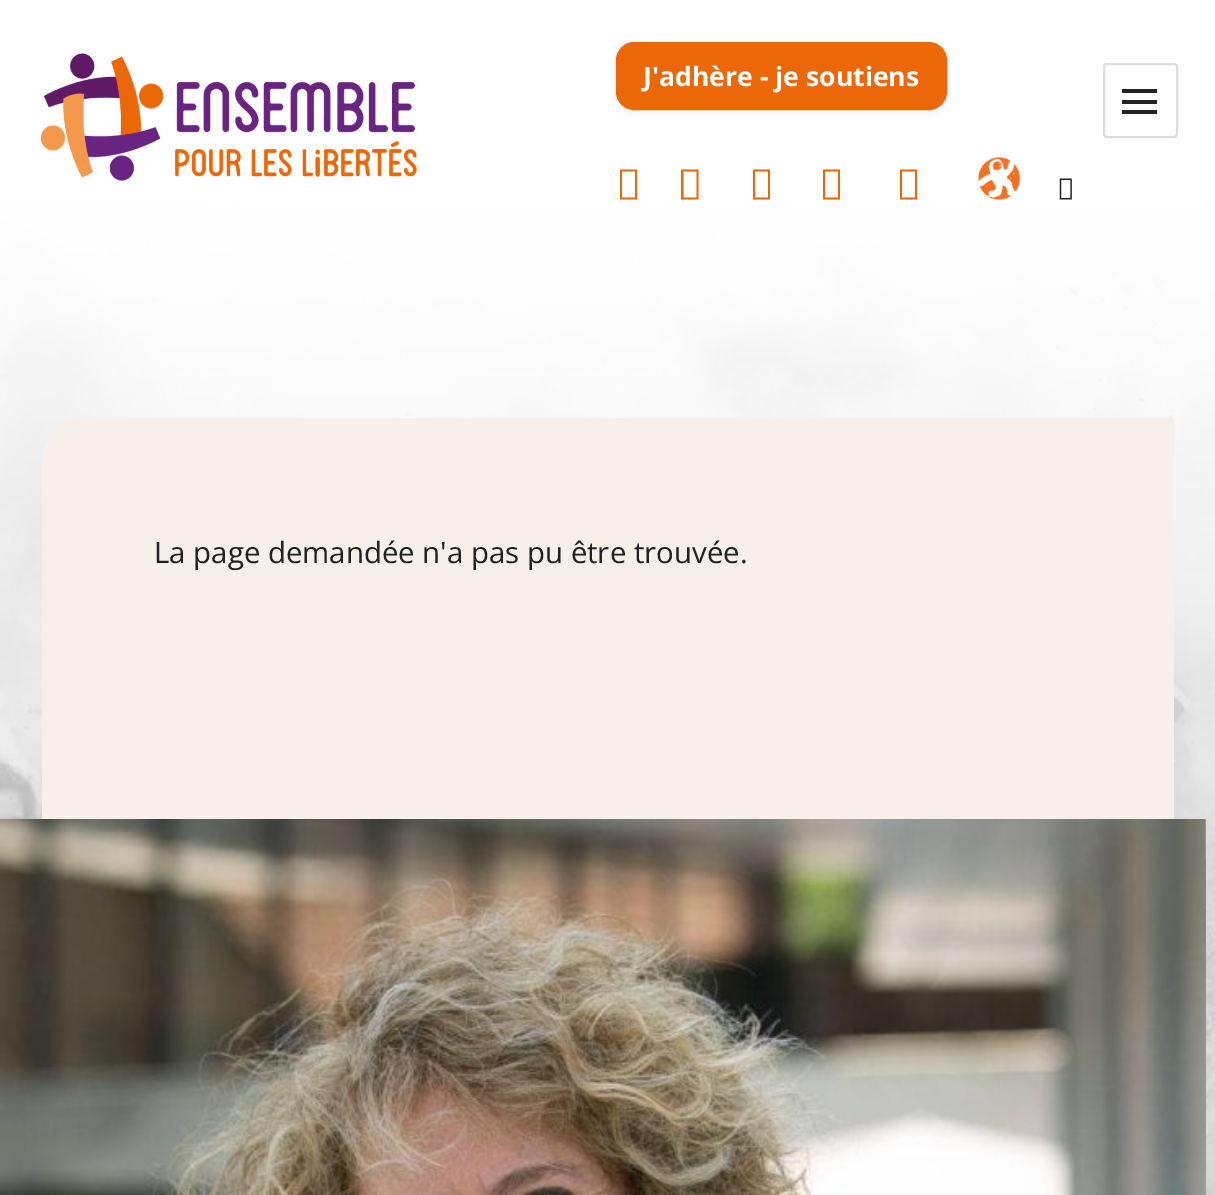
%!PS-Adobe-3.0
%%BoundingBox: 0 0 1215 1195
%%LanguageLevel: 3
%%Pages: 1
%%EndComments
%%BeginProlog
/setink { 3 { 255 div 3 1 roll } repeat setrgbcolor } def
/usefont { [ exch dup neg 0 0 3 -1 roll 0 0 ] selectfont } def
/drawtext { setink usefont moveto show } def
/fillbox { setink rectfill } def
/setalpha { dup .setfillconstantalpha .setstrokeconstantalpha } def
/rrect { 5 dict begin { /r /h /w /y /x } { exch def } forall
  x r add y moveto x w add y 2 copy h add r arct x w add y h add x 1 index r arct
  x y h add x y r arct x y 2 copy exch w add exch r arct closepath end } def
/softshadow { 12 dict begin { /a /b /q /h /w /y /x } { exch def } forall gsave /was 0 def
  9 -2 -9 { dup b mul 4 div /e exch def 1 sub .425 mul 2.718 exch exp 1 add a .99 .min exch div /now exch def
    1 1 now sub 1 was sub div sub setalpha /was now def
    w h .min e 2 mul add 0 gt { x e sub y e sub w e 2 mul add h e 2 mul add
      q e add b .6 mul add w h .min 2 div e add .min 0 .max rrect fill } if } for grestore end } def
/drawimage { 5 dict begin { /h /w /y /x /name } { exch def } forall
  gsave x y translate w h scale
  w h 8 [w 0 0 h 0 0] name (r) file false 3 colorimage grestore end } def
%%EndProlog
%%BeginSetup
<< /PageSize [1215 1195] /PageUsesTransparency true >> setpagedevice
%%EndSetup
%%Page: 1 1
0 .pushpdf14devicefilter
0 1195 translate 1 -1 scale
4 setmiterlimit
0 0 1215 1195 255 255 255 fillbox
(assets/img1.rgb) 0 0 1215 1195 drawimage
(assets/img2.rgb) 40 53 377 128 drawimage
221 221 221 setink
2 setlinewidth
1104 64 73 73 3 rrect stroke
1122 89 35 4 34 34 34 fillbox
1122 100 35 4 34 34 34 fillbox
1122 110 35 4 34 34 34 fillbox
51 51 51 setink
616 46 331 68 18 3.5 0.05 softshadow
236 103 7 setink
617 43 329 66 17 rrect gsave fill grestore
stroke
(J'adhère - je soutiens) 643 86 /OpenSans-Bold 26.6 255 255 255 drawtext
236 103 7 setink
620 199.5 moveto 620 169.5 lineto 637 169.5 lineto 637 199.5 lineto closepath 622 197.5 moveto 635 197.5 lineto 635 171.5 lineto 622 171.5 lineto closepath fill
681 199.5 moveto 681 169.5 lineto 698.5 169.5 lineto 698.5 199.5 lineto closepath 683.5 197.5 moveto 696.5 197.5 lineto 696.5 171.5 lineto 683.5 171.5 lineto closepath fill
753 199.5 moveto 753 169.5 lineto 770 169.5 lineto 770 199.5 lineto closepath 755 197.5 moveto 768 197.5 lineto 768 171.5 lineto 755 171.5 lineto closepath fill
823 199.5 moveto 823 169.5 lineto 840 169.5 lineto 840 199.5 lineto closepath 825 197.5 moveto 838 197.5 lineto 838 171.5 lineto 825 171.5 lineto closepath fill
900 199.5 moveto 900 169.5 lineto 917 169.5 lineto 917 199.5 lineto closepath 902 197.5 moveto 915 197.5 lineto 915 171.5 lineto 902 171.5 lineto closepath fill
(assets/img3.rgb) 978 157 43 43 drawimage
(assets/img4.rgb) 1059 178 13 22 drawimage
246 239 234 setink
84 418 moveto 1174 418 lineto 1174 686 lineto 42 686 lineto 42 460 lineto 42 437 61 418 84 418 curveto closepath fill
(La page demandée n'a pas pu être trouvée.) 154 563 /OpenSans-Regular 29.4 33 33 33 drawtext
42 686 1132 133 246 239 234 fillbox
(assets/img5.rgb) 1205 853 1 342 drawimage
(assets/img6.rgb) 0 819 1206 376 drawimage
.poppdf14devicefilter showpage
%%EOF
